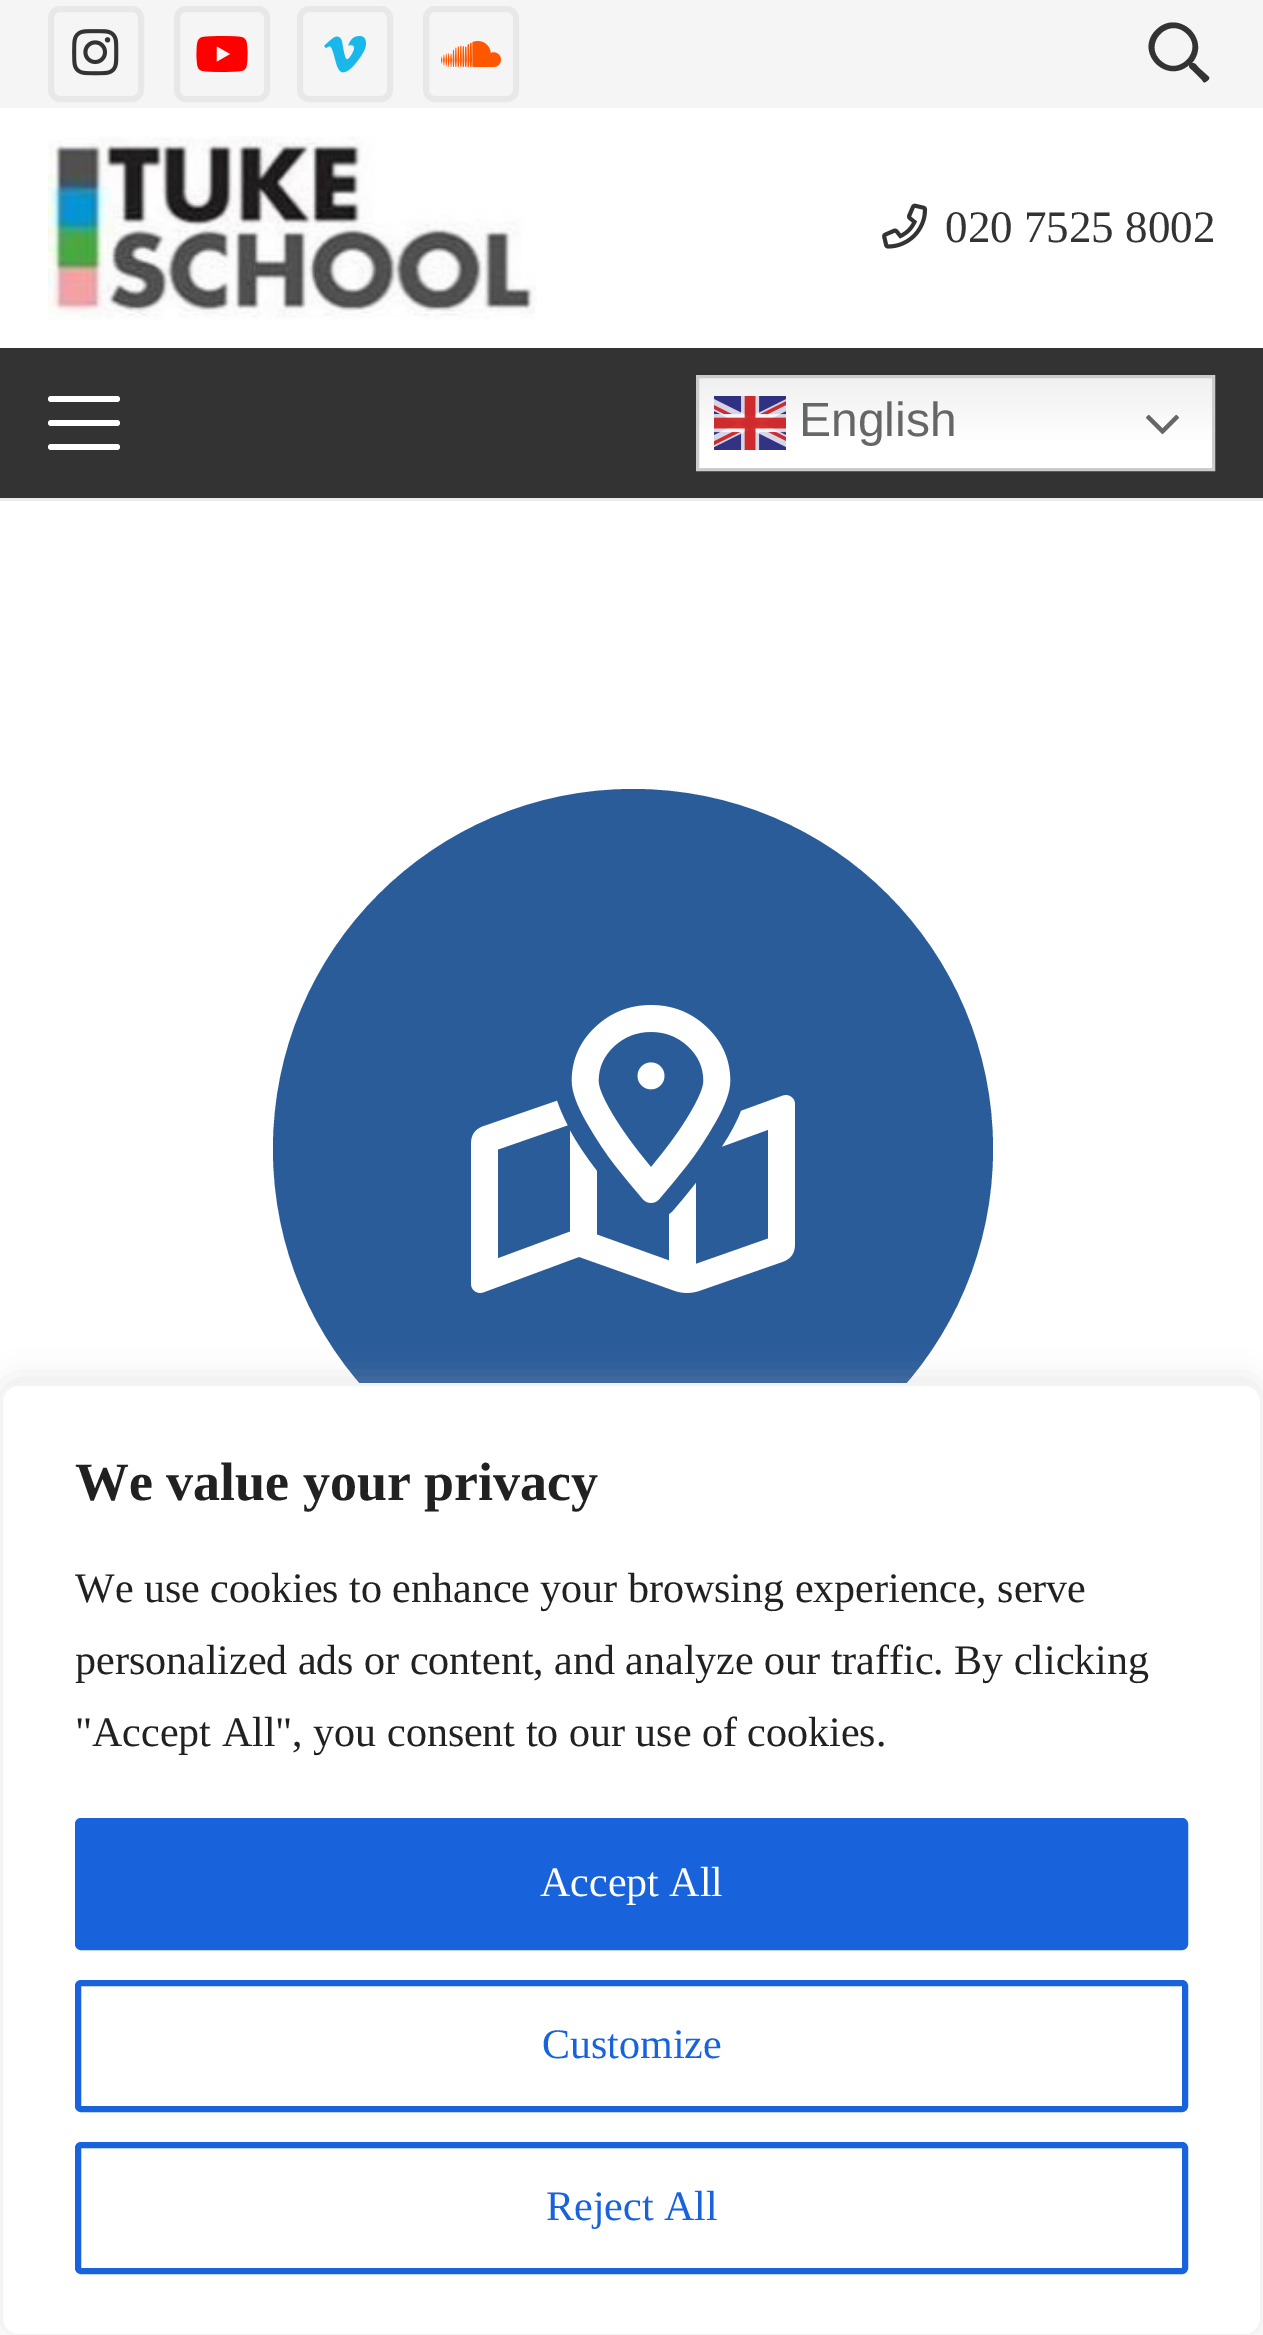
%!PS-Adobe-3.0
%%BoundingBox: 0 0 1263 2335
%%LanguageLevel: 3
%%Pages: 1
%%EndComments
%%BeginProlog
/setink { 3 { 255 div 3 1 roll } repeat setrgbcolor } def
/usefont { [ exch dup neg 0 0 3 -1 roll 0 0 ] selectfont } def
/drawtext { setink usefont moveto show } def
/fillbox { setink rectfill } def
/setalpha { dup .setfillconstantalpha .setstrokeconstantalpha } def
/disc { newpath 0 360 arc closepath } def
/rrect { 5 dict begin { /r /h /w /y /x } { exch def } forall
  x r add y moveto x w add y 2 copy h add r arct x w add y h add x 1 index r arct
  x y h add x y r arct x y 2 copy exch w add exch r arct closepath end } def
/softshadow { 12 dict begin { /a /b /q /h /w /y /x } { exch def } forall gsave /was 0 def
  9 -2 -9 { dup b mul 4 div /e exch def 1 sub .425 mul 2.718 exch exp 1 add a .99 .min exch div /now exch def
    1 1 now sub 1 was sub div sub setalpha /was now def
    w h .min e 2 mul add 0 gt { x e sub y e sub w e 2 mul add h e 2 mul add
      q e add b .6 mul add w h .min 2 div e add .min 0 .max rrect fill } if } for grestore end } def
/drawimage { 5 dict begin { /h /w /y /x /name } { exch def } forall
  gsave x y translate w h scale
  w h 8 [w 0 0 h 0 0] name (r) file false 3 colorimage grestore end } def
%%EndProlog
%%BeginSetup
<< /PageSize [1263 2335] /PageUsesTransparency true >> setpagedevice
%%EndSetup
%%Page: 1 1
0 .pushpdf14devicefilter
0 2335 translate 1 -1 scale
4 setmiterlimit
0 0 1263 2335 255 255 255 fillbox
0 0 1263 108 245 245 245 fillbox
232 232 232 setink
6 setlinewidth
51 9 90 90 9 rrect stroke
(assets/img1.rgb) 72 29 47 47 drawimage
177 9 90 90 9 rrect stroke
(assets/img2.rgb) 196 36 52 36 drawimage
300 9 90 90 9 rrect stroke
(assets/img3.rgb) 324 36 42 37 drawimage
426 9 90 90 9 rrect stroke
(assets/img4.rgb) 441 41 60 26 drawimage
51 51 51 setink
1209 77 moveto 1210 79 1208 80 1207 81 curveto 1204 83 1204 83 1202 80 curveto 1192 70 lineto 1190 68 1189 68 1189 65 curveto 1166 85 1134 52 1156 30 curveto 1178 8 1212 39 1192 63 curveto 1196 63 1196 65 1199 68 curveto closepath 1160 60 moveto 1178 78 1204 51 1187 34 curveto 1169 16 1143 43 1160 60 curveto closepath fill
(assets/img5.rgb) 48 136 489 184 drawimage
(assets/img6.rgb) 882 203 46 46 drawimage
(020 7525 8002) 945 242 /LiberationSerif-Regular 45 51 51 51 drawtext
0 498 1263 3 235 235 235 fillbox
0 348 1263 150 51 51 51 fillbox
255 255 255 setink
48 420 72 6 3 rrect fill
48 396 72 6 3 rrect fill
48 444 72 6 3 rrect fill
gsave 699 378 moveto 1212 378 lineto 1212 468 lineto 699 468 lineto closepath clip newpath
<< /ShadingType 2 /ColorSpace /DeviceRGB /Coords [956 375 956 471] /Extend [true true] /Function << /FunctionType 3 /Domain [0 1] /Functions [<< /FunctionType 2 /Domain [0 1] /C0 [0.937 0.937 0.937] /C1 [1 1 1] /N 1 >> << /FunctionType 2 /Domain [0 1] /C0 [1 1 1] /C1 [1 1 1] /N 1 >>] /Bounds [0.7] /Encode [0 1 0 1] >> >> shfill grestore
204 204 204 setink
3 setlinewidth
697.5 376.5 516 93 rectstroke
(assets/img7.rgb) 714 396 72 54 drawimage
(English) 799 436 /LiberationSans-Regular 48 102 102 102 drawtext
(assets/img8.rgb) 1146 414 33 21 drawimage
43 92 154 setink
633 1149 360 disc fill
(assets/img9.rgb) 471 1005 324 288 drawimage
172 171 171 setink
0 1380 1263 954 18 15 0.3 softshadow
255 255 255 setink
1.5 1384.5 1260 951 16.5 rrect gsave fill grestore
244 244 244 setink
stroke
(We value your privacy) 75 1500 /LiberationSerif-Bold 54 33 33 33 drawtext
(We use cookies to enhance your browsing experience, serve) 75 1602 /LiberationSerif-Regular 42 33 33 33 drawtext
(personalized ads or content, and analyze our traffic. By clicking) 75 1674 /LiberationSerif-Regular 42 33 33 33 drawtext
("Accept All", you consent to our use of cookies.) 75 1746 /LiberationSerif-Regular 42 33 33 33 drawtext
24 99 220 setink
78 1821 1107 126 3 rrect gsave fill grestore
6 setlinewidth
stroke
(Accept All) 540 1896 /LiberationSerif-Regular 42 255 255 255 drawtext
24 99 220 setink
78 1983 1107 126 3 rrect stroke
(Customize) 542 2058 /LiberationSerif-Regular 42 24 99 220 drawtext
78 2145 1107 126 3 rrect stroke
(Reject All) 546 2220 /LiberationSerif-Regular 42 24 99 220 drawtext
.poppdf14devicefilter showpage
%%EOF
